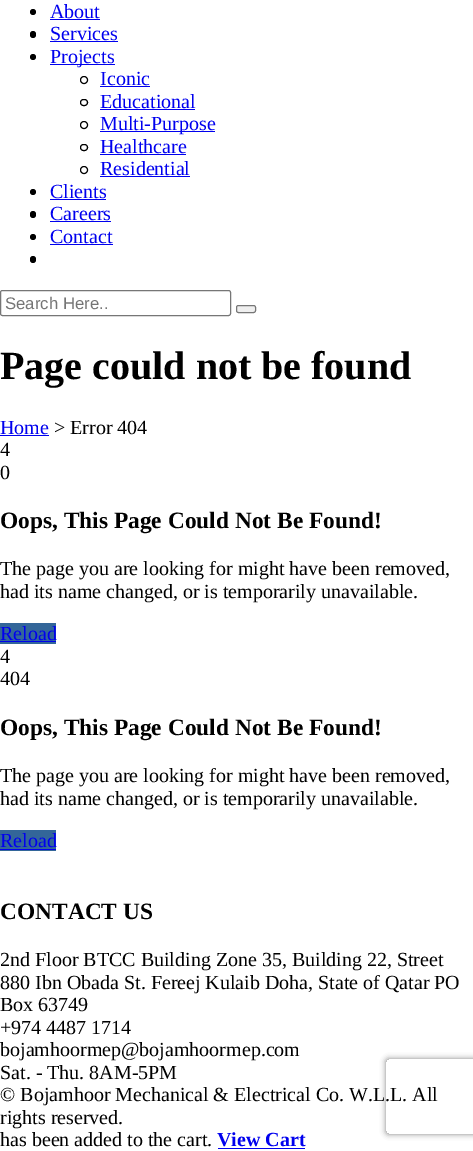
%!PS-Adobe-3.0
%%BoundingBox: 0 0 473 1151
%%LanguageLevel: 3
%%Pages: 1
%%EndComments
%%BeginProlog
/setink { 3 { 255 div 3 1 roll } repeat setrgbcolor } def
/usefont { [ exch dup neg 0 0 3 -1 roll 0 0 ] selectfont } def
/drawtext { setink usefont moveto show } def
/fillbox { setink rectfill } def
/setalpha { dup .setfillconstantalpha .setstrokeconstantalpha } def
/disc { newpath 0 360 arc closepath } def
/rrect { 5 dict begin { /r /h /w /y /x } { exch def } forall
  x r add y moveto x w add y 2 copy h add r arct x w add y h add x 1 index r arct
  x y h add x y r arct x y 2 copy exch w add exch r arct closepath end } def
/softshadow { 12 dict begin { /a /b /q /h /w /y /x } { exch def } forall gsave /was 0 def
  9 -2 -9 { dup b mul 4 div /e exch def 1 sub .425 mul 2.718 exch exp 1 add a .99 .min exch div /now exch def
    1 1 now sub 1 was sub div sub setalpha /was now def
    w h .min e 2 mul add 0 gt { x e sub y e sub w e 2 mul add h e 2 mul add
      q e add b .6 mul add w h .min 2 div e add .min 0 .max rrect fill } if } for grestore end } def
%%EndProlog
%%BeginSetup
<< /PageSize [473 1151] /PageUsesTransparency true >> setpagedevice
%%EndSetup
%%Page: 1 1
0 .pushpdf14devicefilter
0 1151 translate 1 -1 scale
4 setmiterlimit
0 0 473 1151 255 255 255 fillbox
0 0 0 setink
33 12 3 disc fill
(About) 50 18 /LiberationSerif-Regular 20 0 0 238 drawtext
50 19 50 1 0 0 238 fillbox
0 0 0 setink
30 31 6 7 3 rrect fill
(Services) 50 40 /LiberationSerif-Regular 20 0 0 238 drawtext
50 41 68 1 0 0 238 fillbox
0 0 0 setink
33 57 3 disc fill
50 64 65 1 0 0 238 fillbox
(Projects) 50 63 /LiberationSerif-Regular 20 0 0 238 drawtext
0 0 0 setink
84 80 3.5 disc stroke
(Iconic) 100 85 /LiberationSerif-Regular 20 0 0 238 drawtext
100 86 50 1 0 0 238 fillbox
0 0 0 setink
80.5 99.5 7 6 3 rrect stroke
(Educational) 100 108 /LiberationSerif-Regular 20 0 0 238 drawtext
100 109 95 1 0 0 238 fillbox
0 0 0 setink
84 125 3.5 disc stroke
100 131 115 1 0 0 238 fillbox
(Multi-Purpose) 100 130 /LiberationSerif-Regular 20 0 0 238 drawtext
0 0 0 setink
80.5 144.5 7 6 3 rrect stroke
(Healthcare) 100 153 /LiberationSerif-Regular 20 0 0 238 drawtext
100 154 86 1 0 0 238 fillbox
0 0 0 setink
84 170 3.5 disc stroke
(Residential) 100 175 /LiberationSerif-Regular 20 0 0 238 drawtext
100 176 90 1 0 0 238 fillbox
0 0 0 setink
33 192 3 disc fill
(Clients) 50 198 /LiberationSerif-Regular 20 0 0 238 drawtext
50 199 56 1 0 0 238 fillbox
0 0 0 setink
30 211 6 7 3 rrect fill
(Careers) 50 220 /LiberationSerif-Regular 20 0 0 238 drawtext
50 221 61 1 0 0 238 fillbox
0 0 0 setink
33 237 3 disc fill
(Contact) 50 243 /LiberationSerif-Regular 20 0 0 238 drawtext
50 244 63 1 0 0 238 fillbox
0 0 0 setink
30 256 6 7 3 rrect fill
118 118 118 setink
0.5 290.5 230 25 2 rrect stroke
(Search Here..) 5 309 /LiberationSans-Regular 16.75 117 117 117 drawtext
239 239 239 setink
236.5 305.5 19 7 2 rrect gsave fill grestore
118 118 118 setink
stroke
(Page could not be found) 0 379 /LiberationSerif-Bold 40 0 0 0 drawtext
(Home) 0 434 /LiberationSerif-Regular 20 0 0 238 drawtext
0 435 49 1 0 0 238 fillbox
(> Error 404) 54 434 /LiberationSerif-Regular 20 0 0 0 drawtext
(4) 0 456 /LiberationSerif-Regular 20 0 0 0 drawtext
(0) 0 479 /LiberationSerif-Regular 20 0 0 0 drawtext
(Oops, This Page Could Not Be Found!) 0 528 /LiberationSerif-Bold 23.4 0 0 0 drawtext
(The page you are looking for might have been removed,) 0 575 /LiberationSerif-Regular 20 0 0 0 drawtext
(had its name changed, or is temporarily unavailable.) 0 598 /LiberationSerif-Regular 20 0 0 0 drawtext
0 623 56 21 51 102 153 fillbox
(Reload) 0 640 /LiberationSerif-Regular 20 0 0 238 drawtext
0 641 56 1 0 0 238 fillbox
(4) 0 663 /LiberationSerif-Regular 20 0 0 0 drawtext
(404) 0 685 /LiberationSerif-Regular 20 0 0 0 drawtext
(Oops, This Page Could Not Be Found!) 0 735 /LiberationSerif-Bold 23.4 0 0 0 drawtext
(The page you are looking for might have been removed,) 0 782 /LiberationSerif-Regular 20 0 0 0 drawtext
(had its name changed, or is temporarily unavailable.) 0 805 /LiberationSerif-Regular 20 0 0 0 drawtext
0 830 56 21 51 102 153 fillbox
(Reload) 0 847 /LiberationSerif-Regular 20 0 0 238 drawtext
0 849 56 1 0 0 238 fillbox
(CONTACT US) 0 919 /LiberationSerif-Bold 23.4 0 0 0 drawtext
(2nd Floor BTCC Building Zone 35, Building 22, Street) 0 966 /LiberationSerif-Regular 20 0 0 0 drawtext
(880 Ibn Obada St. Fereej Kulaib Doha, State of Qatar PO) 0 989 /LiberationSerif-Regular 20 0 0 0 drawtext
(Box 63749) 0 1011 /LiberationSerif-Regular 20 0 0 0 drawtext
(+974 4487 1714) 0 1034 /LiberationSerif-Regular 20 0 0 0 drawtext
(bojamhoormep@bojamhoormep.com) 0 1056 /LiberationSerif-Regular 20 0 0 0 drawtext
(Sat. - Thu. 8AM-5PM) 0 1079 /LiberationSerif-Regular 20 0 0 0 drawtext
(© Bojamhoor Mechanical & Electrical Co. W.L.L. All) 0 1101 /LiberationSerif-Regular 20 0 0 0 drawtext
(rights reserved.) 0 1124 /LiberationSerif-Regular 20 0 0 0 drawtext
(has been added to the cart.) 0 1146 /LiberationSerif-Regular 20 0 0 0 drawtext
(View Cart) 217 1146 /LiberationSerif-Bold 20 0 0 238 drawtext
218 1148 87 1 0 0 238 fillbox
gsave
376 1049 moveto 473 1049 lineto 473 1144 lineto 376 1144 lineto closepath 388.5 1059 moveto 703.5 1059 lineto 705 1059 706 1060 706 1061.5 curveto 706 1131.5 lineto 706 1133 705 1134 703.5 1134 curveto 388.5 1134 lineto 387 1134 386 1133 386 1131.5 curveto 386 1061.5 lineto 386 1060 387 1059 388.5 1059 curveto closepath eoclip newpath
128 128 128 setink
386 1059 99 75 2.5 3 1 softshadow
grestore
.poppdf14devicefilter showpage
%%EOF
